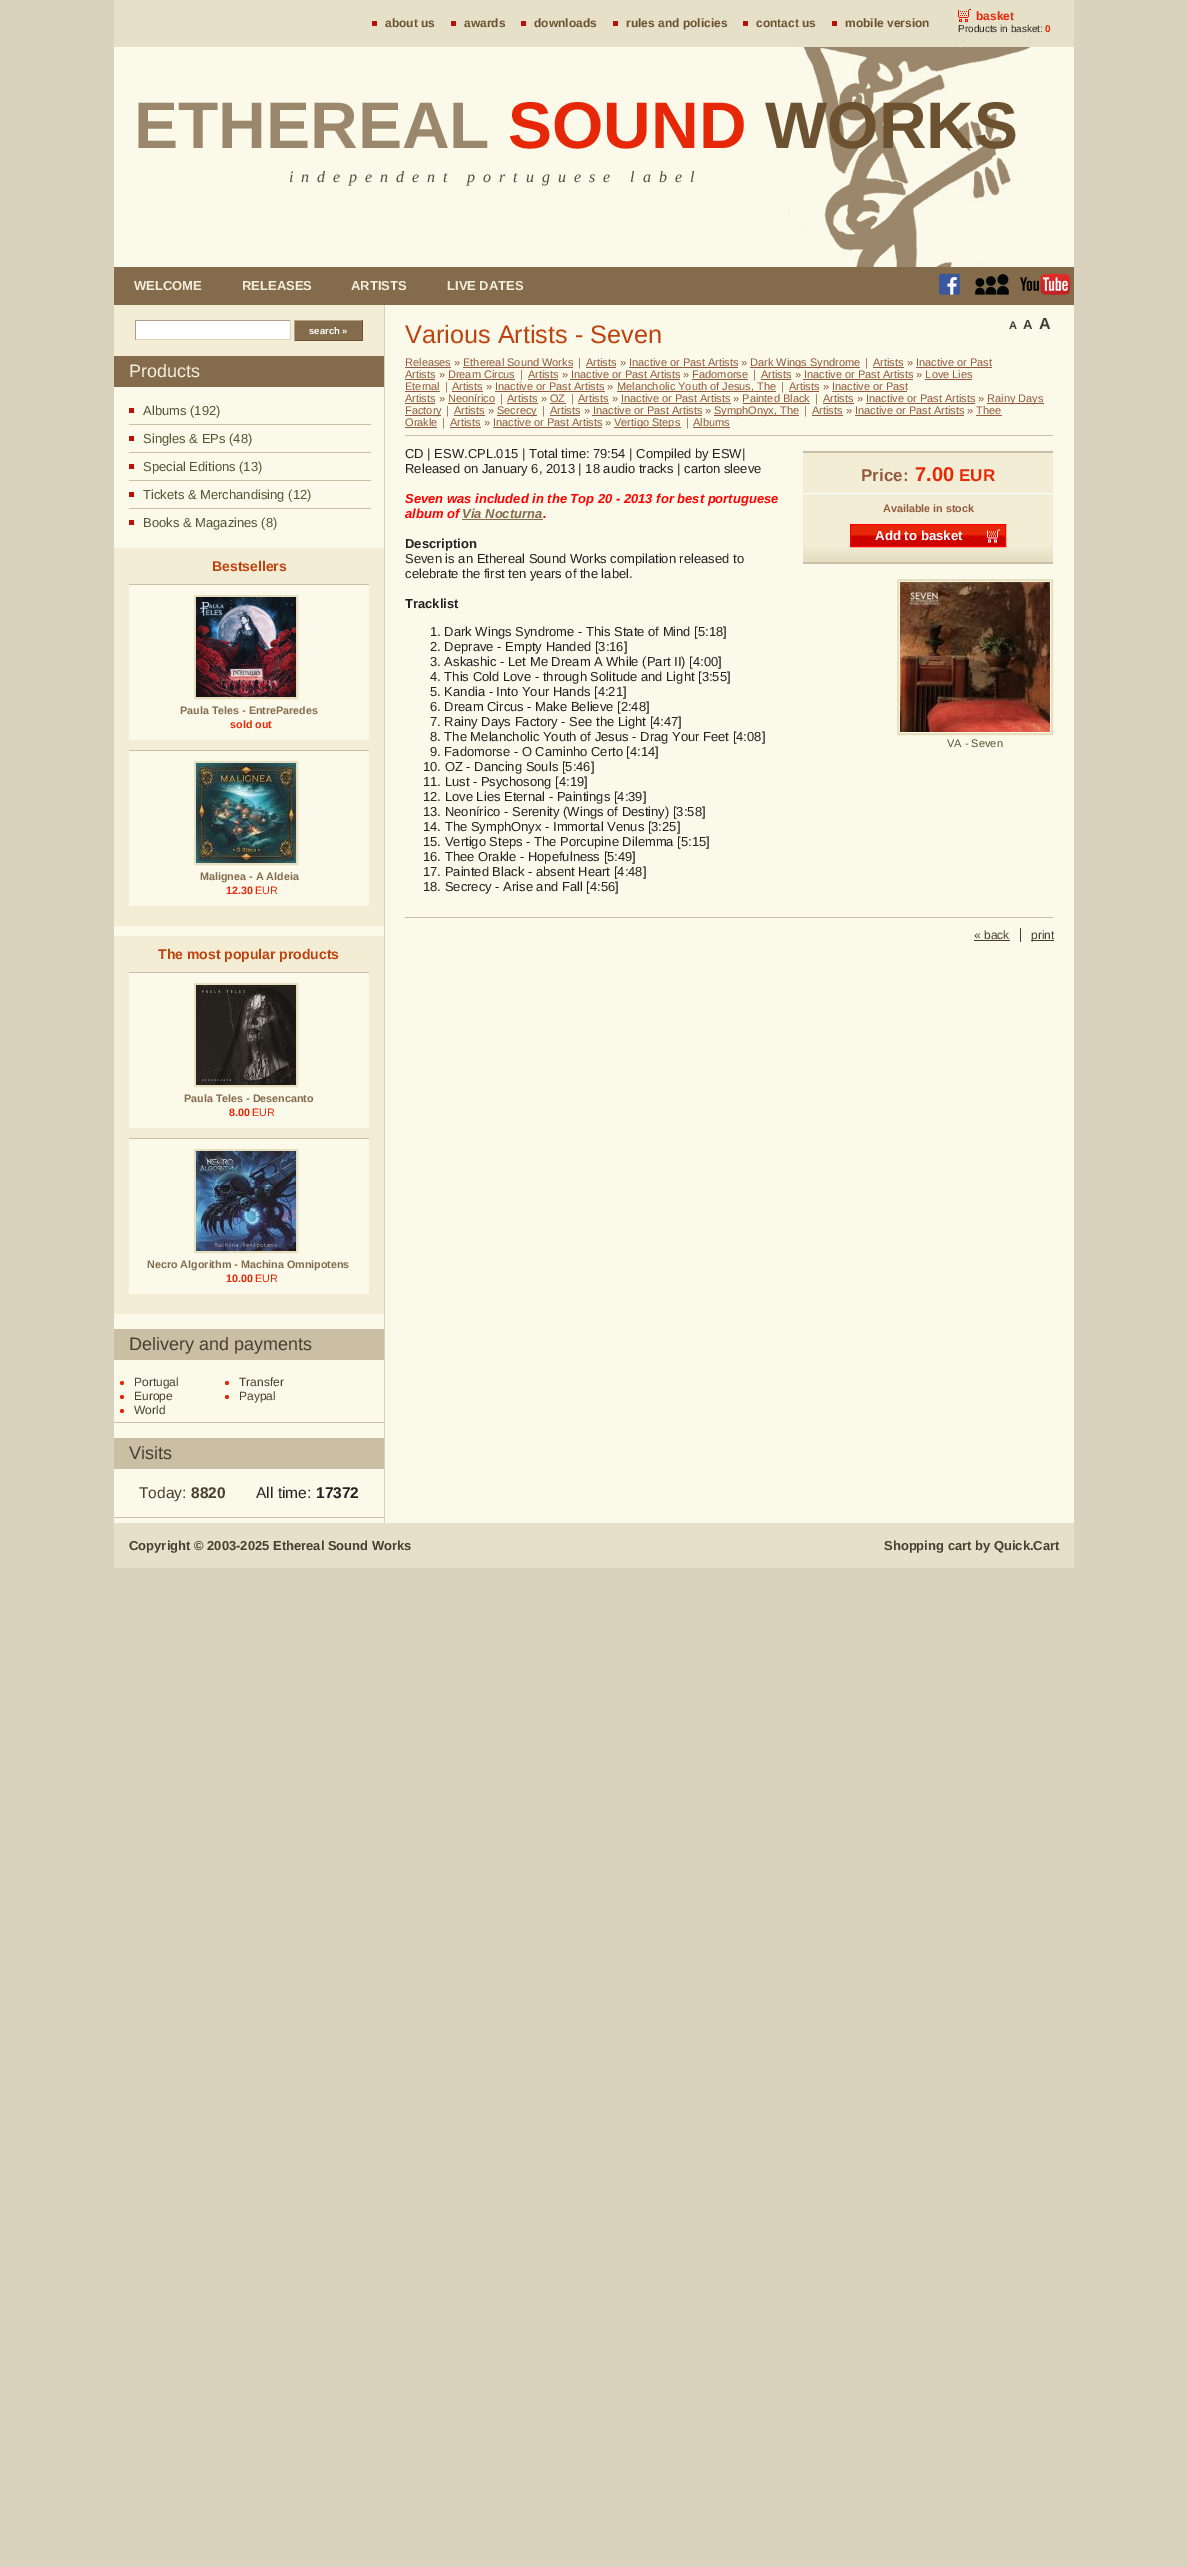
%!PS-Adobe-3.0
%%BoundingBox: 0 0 1188 2567
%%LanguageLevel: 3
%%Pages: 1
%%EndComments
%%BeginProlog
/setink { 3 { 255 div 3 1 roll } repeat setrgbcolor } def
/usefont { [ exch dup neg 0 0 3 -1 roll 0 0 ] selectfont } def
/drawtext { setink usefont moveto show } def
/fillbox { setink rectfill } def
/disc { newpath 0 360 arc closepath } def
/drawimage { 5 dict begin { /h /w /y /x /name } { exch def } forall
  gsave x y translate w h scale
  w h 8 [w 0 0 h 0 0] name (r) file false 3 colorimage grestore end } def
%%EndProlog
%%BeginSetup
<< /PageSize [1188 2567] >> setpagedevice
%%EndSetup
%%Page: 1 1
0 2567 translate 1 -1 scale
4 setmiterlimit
0 0 1188 2567 217 210 188 fillbox
114 0 960 47 231 224 200 fillbox
(about us) 385 27 /LiberationSans-Bold 12 109 82 50 drawtext
372 21 5 5 186 16 7 fillbox
(awards) 464 27 /LiberationSans-Bold 12 109 82 50 drawtext
451 21 5 5 186 16 7 fillbox
(downloads) 534 27 /LiberationSans-Bold 12 109 82 50 drawtext
521 21 5 5 186 16 7 fillbox
(rules and policies) 626 27 /LiberationSans-Bold 12 109 82 50 drawtext
613 21 5 5 186 16 7 fillbox
(contact us) 756 27 /LiberationSans-Bold 12 109 82 50 drawtext
743 21 5 5 186 16 7 fillbox
(mobile version) 845 27 /LiberationSans-Bold 12 109 82 50 drawtext
832 21 5 5 186 16 7 fillbox
(assets/img1.rgb) 958 9 13 13 drawimage
(basket) 976 20 /LiberationSans-Bold 12 230 40 8 drawtext
(Products in basket:) 958 32 /LiberationSans-Regular 10 34 34 34 drawtext
(0) 1045 32 /LiberationSans-Bold 10 230 40 8 drawtext
114 47 960 220 251 249 233 fillbox
(assets/img2.rgb) 786 47 245 220 drawimage
(ETHEREAL) 134 148 /LiberationSans-Bold 66 155 135 107 drawtext
(SOUND) 508 148 /LiberationSans-Bold 66 230 40 8 drawtext
(WORKS) 765 148 /LiberationSans-Bold 66 109 82 50 drawtext
(i  n  d  e  p  e  n  d  e  n  t     p  o  r  t  u  g  u  e  s  e     l  a  b  e  l) 289 182 /LiberationSerif-Italic 16 84 77 61 drawtext
114 267 960 38 131 107 76 fillbox
(WELCOME) 134 290 /LiberationSans-Bold 13 243 239 222 drawtext
(RELEASES) 242 290 /LiberationSans-Bold 13 243 239 222 drawtext
(ARTISTS) 351 290 /LiberationSans-Bold 13 243 239 222 drawtext
(LIVE DATES) 447 290 /LiberationSans-Bold 13 243 239 222 drawtext
(assets/img3.rgb) 939 273 21 22 drawimage
(assets/img4.rgb) 975 274 34 21 drawimage
(assets/img5.rgb) 1020 273 51 22 drawimage
(assets/img6.rgb) 114 305 960 1218 drawimage
114 305 270 51 243 237 214 fillbox
136 321 154 18 255 255 255 fillbox
135 320 156 1 175 158 131 fillbox
290 320 1 20 224 211 183 fillbox
135 339 156 1 224 211 183 fillbox
135 320 1 20 175 158 131 fillbox
295 321 67 19 131 107 76 fillbox
294 320 69 1 179 163 138 fillbox
362 320 1 21 109 82 50 fillbox
294 340 69 1 109 82 50 fillbox
294 320 1 21 179 163 138 fillbox
(search ») 309 334 /LiberationSans-Bold 9.5 255 255 255 drawtext
114 356 270 31 131 107 76 fillbox
(Products) 129 377 /LiberationSans-Regular 18 243 239 222 drawtext
129 408 5 5 186 16 7 fillbox
(Albums \(192\)) 143 415 /LiberationSans-Regular 13 85 85 51 drawtext
129 436 5 5 186 16 7 fillbox
129 424 242 1 202 191 165 fillbox
(Singles & EPs \(48\)) 143 443 /LiberationSans-Regular 13 85 85 51 drawtext
129 464 5 5 186 16 7 fillbox
129 452 242 1 202 191 165 fillbox
(Special Editions \(13\)) 143 471 /LiberationSans-Regular 13 85 85 51 drawtext
129 492 5 5 186 16 7 fillbox
129 480 242 1 202 191 165 fillbox
(Tickets & Merchandising \(12\)) 143 499 /LiberationSans-Regular 13 85 85 51 drawtext
129 520 5 5 186 16 7 fillbox
129 508 242 1 202 191 165 fillbox
(Books & Magazines \(8\)) 143 527 /LiberationSans-Regular 13 85 85 51 drawtext
114 548 270 378 243 237 214 fillbox
(Bestsellers) 212 571 /LiberationSans-Bold 14 190 66 14 drawtext
129 585 240 155 251 249 233 fillbox
129 584 240 1 202 191 165 fillbox
231 223 189 setink
2 setlinewidth
195 596 102 102 rectstroke
(assets/img7.rgb) 196 597 100 100 drawimage
(Paula Teles - EntreParedes) 180 714 /LiberationSans-Bold 10.75 131 107 76 drawtext
(sold out) 230 728 /LiberationSans-Bold 10.75 230 40 8 drawtext
129 751 240 155 251 249 233 fillbox
129 750 240 1 202 191 165 fillbox
231 223 189 setink
195 762 102 102 rectstroke
(assets/img8.rgb) 196 763 100 100 drawimage
(Malignea - A Aldeia) 200 880 /LiberationSans-Bold 10.75 131 107 76 drawtext
(12.30) 226 894 /LiberationSans-Bold 10.75 230 40 8 drawtext
(EUR) 255 894 /LiberationSans-Regular 10.75 230 40 8 drawtext
114 936 270 378 243 237 214 fillbox
(The most popular products) 158 959 /LiberationSans-Bold 14 190 66 14 drawtext
129 973 240 155 251 249 233 fillbox
129 972 240 1 202 191 165 fillbox
231 223 189 setink
195 984 102 102 rectstroke
(assets/img9.rgb) 196 985 100 100 drawimage
(Paula Teles - Desencanto) 184 1102 /LiberationSans-Bold 10.75 131 107 76 drawtext
(8.00) 229 1116 /LiberationSans-Bold 10.75 230 40 8 drawtext
(EUR) 252 1116 /LiberationSans-Regular 10.75 230 40 8 drawtext
129 1139 240 155 251 249 233 fillbox
129 1138 240 1 202 191 165 fillbox
231 223 189 setink
195 1150 102 102 rectstroke
(assets/img10.rgb) 196 1151 100 100 drawimage
(Necro Algorithm - Machina Omnipotens) 147 1268 /LiberationSans-Bold 10.75 131 107 76 drawtext
(10.00) 226 1282 /LiberationSans-Bold 10.75 230 40 8 drawtext
(EUR) 255 1282 /LiberationSans-Regular 10.75 230 40 8 drawtext
114 1422 270 1 202 191 165 fillbox
114 1329 270 31 202 191 165 fillbox
(Delivery and payments) 129 1350 /LiberationSans-Regular 18 70 64 50 drawtext
230 40 8 setink
122 1383 2 disc fill
(Portugal) 134 1386 /LiberationSans-Regular 12 70 64 50 drawtext
230 40 8 setink
122 1397 2 disc fill
(Europe) 134 1400 /LiberationSans-Regular 12 70 64 50 drawtext
230 40 8 setink
122 1411 2 disc fill
(World) 134 1414 /LiberationSans-Regular 12 70 64 50 drawtext
230 40 8 setink
227 1383 2 disc fill
(Transfer) 239 1386 /LiberationSans-Regular 12 70 64 50 drawtext
230 40 8 setink
227 1397 2 disc fill
(Paypal) 239 1400 /LiberationSans-Regular 12 70 64 50 drawtext
114 1517 270 1 202 191 165 fillbox
114 1438 270 31 202 191 165 fillbox
(Visits) 129 1459 /LiberationSans-Regular 18 70 64 50 drawtext
(Today:) 139 1498 /LiberationSans-Regular 15.5 70 64 50 drawtext
(8820) 191 1498 /LiberationSans-Bold 15.5 70 64 50 drawtext
(All time:) 256 1498 /LiberationSans-Regular 15.5 34 34 34 drawtext
(17372) 316 1498 /LiberationSans-Bold 15.5 34 34 34 drawtext
405 917 648 1 202 191 165 fillbox
(Various Artists - Seven) 405 343 /LiberationSans-Regular 25.25 190 66 14 drawtext
(A) 1009 329 /LiberationSans-Bold 11 61 61 48 drawtext
(A) 1023 329 /LiberationSans-Bold 13 61 61 48 drawtext
(A) 1039 329 /LiberationSans-Bold 16 61 61 48 drawtext
405 435 648 1 202 191 165 fillbox
(Releases » Ethereal Sound Works) 405 366 /LiberationSans-Regular 11 145 90 60 drawtext
405 367 46 1 145 90 60 fillbox
(|) 578 366 /LiberationSans-Italic 11 145 90 60 drawtext
(Artists » Inactive or Past Artists ») 586 366 /LiberationSans-Regular 11 145 90 60 drawtext
586 367 30 1 145 90 60 fillbox
750 367 110 1 145 90 60 fillbox
(Dark Wings Syndrome) 750 366 /LiberationSans-Regular 11 145 90 60 drawtext
(|) 865 366 /LiberationSans-Italic 11 145 90 60 drawtext
(Artists » Inactive or Past) 873 366 /LiberationSans-Regular 11 145 90 60 drawtext
873 367 31 1 145 90 60 fillbox
463 367 110 1 145 90 60 fillbox
629 367 109 1 145 90 60 fillbox
(Artists » Dream Circus) 405 378 /LiberationSans-Regular 11 145 90 60 drawtext
916 367 76 1 145 90 60 fillbox
405 379 30 1 145 90 60 fillbox
(|) 520 378 /LiberationSans-Italic 11 145 90 60 drawtext
(Artists » Inactive or Past Artists » Fadomorse) 528 378 /LiberationSans-Regular 11 145 90 60 drawtext
528 379 30 1 145 90 60 fillbox
(|) 753 378 /LiberationSans-Italic 11 145 90 60 drawtext
(Artists » Inactive or Past Artists » Love Lies) 761 378 /LiberationSans-Regular 11 145 90 60 drawtext
761 379 30 1 145 90 60 fillbox
448 379 67 1 145 90 60 fillbox
570 379 110 1 145 90 60 fillbox
692 379 56 1 145 90 60 fillbox
803 379 110 1 145 90 60 fillbox
(Eternal) 405 390 /LiberationSans-Regular 11 145 90 60 drawtext
925 379 47 1 145 90 60 fillbox
405 391 35 1 145 90 60 fillbox
(|) 445 390 /LiberationSans-Italic 11 145 90 60 drawtext
(Artists » Inactive or Past Artists ») 452 390 /LiberationSans-Regular 11 145 90 60 drawtext
452 391 31 1 145 90 60 fillbox
617 391 159 1 145 90 60 fillbox
(Melancholic Youth of Jesus, The) 617 390 /LiberationSans-Regular 11 145 90 60 drawtext
(|) 781 390 /LiberationSans-Italic 11 145 90 60 drawtext
(Artists » Inactive or Past) 789 390 /LiberationSans-Regular 11 145 90 60 drawtext
789 391 30 1 145 90 60 fillbox
495 391 110 1 145 90 60 fillbox
(Artists » Neonírico) 405 402 /LiberationSans-Regular 11 145 90 60 drawtext
832 391 75 1 145 90 60 fillbox
405 403 30 1 145 90 60 fillbox
(|) 500 402 /LiberationSans-Italic 11 145 90 60 drawtext
(Artists » OZ) 507 402 /LiberationSans-Regular 11 145 90 60 drawtext
507 403 31 1 145 90 60 fillbox
(|) 571 402 /LiberationSans-Italic 11 145 90 60 drawtext
(Artists » Inactive or Past Artists » Painted Black) 578 402 /LiberationSans-Regular 11 145 90 60 drawtext
578 403 31 1 145 90 60 fillbox
(|) 815 402 /LiberationSans-Italic 11 145 90 60 drawtext
(Artists » Inactive or Past Artists ») 823 402 /LiberationSans-Regular 11 145 90 60 drawtext
823 403 31 1 145 90 60 fillbox
987 403 57 1 145 90 60 fillbox
(Rainy Days) 987 402 /LiberationSans-Regular 11 145 90 60 drawtext
448 403 47 1 145 90 60 fillbox
550 403 16 1 145 90 60 fillbox
621 403 110 1 145 90 60 fillbox
743 403 67 1 145 90 60 fillbox
866 403 109 1 145 90 60 fillbox
405 415 36 1 145 90 60 fillbox
(Factory) 405 414 /LiberationSans-Regular 11 145 90 60 drawtext
(|) 446 414 /LiberationSans-Italic 11 145 90 60 drawtext
(Artists ») 454 414 /LiberationSans-Regular 11 145 90 60 drawtext
454 415 31 1 145 90 60 fillbox
497 415 40 1 145 90 60 fillbox
(Secrecy) 497 414 /LiberationSans-Regular 11 145 90 60 drawtext
(|) 542 414 /LiberationSans-Italic 11 145 90 60 drawtext
(Artists » Inactive or Past Artists ») 550 414 /LiberationSans-Regular 11 145 90 60 drawtext
550 415 30 1 145 90 60 fillbox
714 415 85 1 145 90 60 fillbox
(SymphOnyx, The) 714 414 /LiberationSans-Regular 11 145 90 60 drawtext
(|) 804 414 /LiberationSans-Italic 11 145 90 60 drawtext
(Artists » Inactive or Past Artists » Thee) 812 414 /LiberationSans-Regular 11 145 90 60 drawtext
812 415 31 1 145 90 60 fillbox
592 415 110 1 145 90 60 fillbox
855 415 109 1 145 90 60 fillbox
(Orakle) 405 426 /LiberationSans-Regular 11 145 90 60 drawtext
976 415 26 1 145 90 60 fillbox
405 427 32 1 145 90 60 fillbox
(|) 442 426 /LiberationSans-Italic 11 145 90 60 drawtext
(Artists » Inactive or Past Artists ») 450 426 /LiberationSans-Regular 11 145 90 60 drawtext
450 427 31 1 145 90 60 fillbox
614 427 67 1 145 90 60 fillbox
(Vertigo Steps) 614 426 /LiberationSans-Regular 11 145 90 60 drawtext
(|) 686 426 /LiberationSans-Italic 11 145 90 60 drawtext
(Albums) 693 426 /LiberationSans-Regular 11 145 90 60 drawtext
693 427 37 1 145 90 60 fillbox
493 427 109 1 145 90 60 fillbox
(CD | ESW.CPL.015 | Total time: 79:54 | Compiled by ESW|) 405 458 /LiberationSans-Regular 13 34 34 34 drawtext
(Released on January 6, 2013 | 18 audio tracks | carton sleeve) 405 473 /LiberationSans-Regular 13 34 34 34 drawtext
(Seven was included in the Top 20 - 2013 for best portuguese) 405 503 /LiberationSans-BoldItalic 13 255 0 0 drawtext
(album of) 405 518 /LiberationSans-BoldItalic 13 255 0 0 drawtext
(Via Nocturna) 462 518 /LiberationSans-BoldItalic 13 131 107 76 drawtext
(.) 543 518 /LiberationSans-BoldItalic 13 255 0 0 drawtext
462 519 81 1 131 107 76 fillbox
(Description) 405 548 /LiberationSans-Bold 13 34 34 34 drawtext
(Seven is an Ethereal Sound Works compilation released to) 405 563 /LiberationSans-Regular 13 34 34 34 drawtext
(celebrate the first ten years of the label.) 405 578 /LiberationSans-Regular 13 34 34 34 drawtext
(Tracklist) 405 608 /LiberationSans-Bold 13 34 34 34 drawtext
(1. Dark Wings Syndrome - This State of Mind [5:18]) 430 636 /LiberationSans-Regular 13 34 34 34 drawtext
(2. Deprave - Empty Handed [3:16]) 430 651 /LiberationSans-Regular 13 34 34 34 drawtext
(3. Askashic - Let Me Dream A While \(Part II\) [4:00]) 430 666 /LiberationSans-Regular 13 34 34 34 drawtext
(4. This Cold Love - through Solitude and Light [3:55]) 430 681 /LiberationSans-Regular 13 34 34 34 drawtext
(5. Kandia - Into Your Hands [4:21]) 430 696 /LiberationSans-Regular 13 34 34 34 drawtext
(6. Dream Circus - Make Believe [2:48]) 430 711 /LiberationSans-Regular 13 34 34 34 drawtext
(7. Rainy Days Factory - See the Light [4:47]) 430 726 /LiberationSans-Regular 13 34 34 34 drawtext
(8. The Melancholic Youth of Jesus - Drag Your Feet [4:08]) 430 741 /LiberationSans-Regular 13 34 34 34 drawtext
(9. Fadomorse - O Caminho Certo [4:14]) 430 756 /LiberationSans-Regular 13 34 34 34 drawtext
(10. OZ - Dancing Souls [5:46]) 423 771 /LiberationSans-Regular 13 34 34 34 drawtext
(11. Lust - Psychosong [4:19]) 423 786 /LiberationSans-Regular 13 34 34 34 drawtext
(12. Love Lies Eternal - Paintings [4:39]) 423 801 /LiberationSans-Regular 13 34 34 34 drawtext
(13. Neonírico - Serenity \(Wings of Destiny\) [3:58]) 423 816 /LiberationSans-Regular 13 34 34 34 drawtext
(14. The SymphOnyx - Immortal Venus [3:25]) 423 831 /LiberationSans-Regular 13 34 34 34 drawtext
(15. Vertigo Steps - The Porcupine Dilemma [5:15]) 423 846 /LiberationSans-Regular 13 34 34 34 drawtext
(16. Thee Orakle - Hopefulness [5:49]) 423 861 /LiberationSans-Regular 13 34 34 34 drawtext
(17. Painted Black - absent Heart [4:48]) 423 876 /LiberationSans-Regular 13 34 34 34 drawtext
(18. Secrecy - Arise and Fall [4:56]) 423 891 /LiberationSans-Regular 13 34 34 34 drawtext
803 453 250 94 243 237 214 fillbox
(assets/img11.rgb) 803 547 250 15 drawimage
803 451 250 2 202 191 165 fillbox
803 562 250 2 202 191 165 fillbox
803 493 250 1 255 255 255 fillbox
(Price:) 861 481 /LiberationSans-Bold 17 145 90 60 drawtext
(7.00) 915 481 /LiberationSans-Bold 20 230 40 8 drawtext
(EUR) 959 481 /LiberationSans-Bold 17 230 40 8 drawtext
(Available in stock) 883 512 /LiberationSans-Bold 10.75 145 90 60 drawtext
(assets/img12.rgb) 851 525 154 21 drawimage
255 0 0 setink
1 setlinewidth
850.5 524.5 155 22 rectstroke
(Add to basket) 875 540 /LiberationSans-Bold 13.25 255 255 255 drawtext
231 223 189 setink
2 setlinewidth
898 580 154 154 rectstroke
(assets/img13.rgb) 900 582 150 150 drawimage
(VA - Seven) 947 747 /LiberationSans-Regular 11 85 85 51 drawtext
(« back) 974 939 /LiberationSans-Regular 12 70 64 50 drawtext
974 940 36 1 70 64 50 fillbox
1031 940 23 1 70 64 50 fillbox
(print) 1031 939 /LiberationSans-Regular 12 70 64 50 drawtext
1020 928 1 14 70 64 50 fillbox
114 1523 960 45 231 224 200 fillbox
(Copyright © 2003-2025 Ethereal Sound Works) 129 1550 /LiberationSans-Bold 13 70 64 50 drawtext
(Shopping cart by Quick.Cart) 884 1550 /LiberationSans-Bold 13 70 64 50 drawtext
showpage
%%EOF
